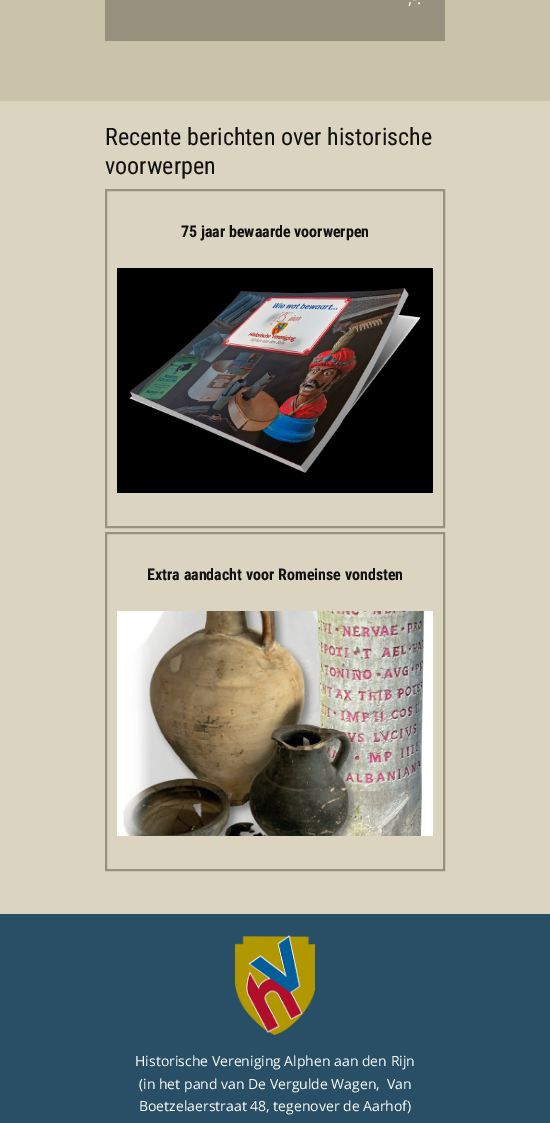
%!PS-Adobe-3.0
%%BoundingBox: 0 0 550 1123
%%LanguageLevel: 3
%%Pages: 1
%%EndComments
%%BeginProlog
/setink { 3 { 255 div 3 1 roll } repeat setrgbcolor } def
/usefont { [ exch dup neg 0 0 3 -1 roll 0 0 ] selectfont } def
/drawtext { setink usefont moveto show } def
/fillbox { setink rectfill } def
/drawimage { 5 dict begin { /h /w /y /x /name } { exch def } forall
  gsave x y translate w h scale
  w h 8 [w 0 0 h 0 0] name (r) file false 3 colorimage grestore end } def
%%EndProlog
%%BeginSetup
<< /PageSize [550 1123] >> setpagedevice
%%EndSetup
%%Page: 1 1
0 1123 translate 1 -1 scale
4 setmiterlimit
0 0 550 1123 202 194 169 fillbox
105 0 340 41 152 145 125 fillbox
(,-.) 408 4 /OpenSans-Regular 16 255 255 255 drawtext
0 101 550 813 218 212 193 fillbox
(Recente berichten over historische) 105 145 /RobotoCondensed-Regular 24 17 17 17 drawtext
(voorwerpen) 105 174 /RobotoCondensed-Regular 24 17 17 17 drawtext
152 145 125 setink
2 setlinewidth
106 190 338 337 rectstroke
(75 jaar bewaarde voorwerpen) 181 237 /RobotoCondensed-Bold 16 17 17 17 drawtext
(assets/img1.rgb) 117 268 316 225 drawimage
152 145 125 setink
106 533 338 337 rectstroke
(Extra aandacht voor Romeinse vondsten) 147 580 /RobotoCondensed-Bold 16 17 17 17 drawtext
(assets/img2.rgb) 117 611 316 225 drawimage
0 914 550 209 41 79 103 fillbox
(assets/img3.rgb) 235 935 80 100 drawimage
(Historische Vereniging Alphen aan den Rijn) 135 1066 /OpenSans-Regular 14 255 255 255 drawtext
(\(in het pand van De Vergulde Wagen,  Van) 139 1089 /OpenSans-Regular 14 255 255 255 drawtext
(Boetzelaerstraat 48, tegenover de Aarhof\)) 139 1111 /OpenSans-Regular 14 255 255 255 drawtext
showpage
%%EOF
